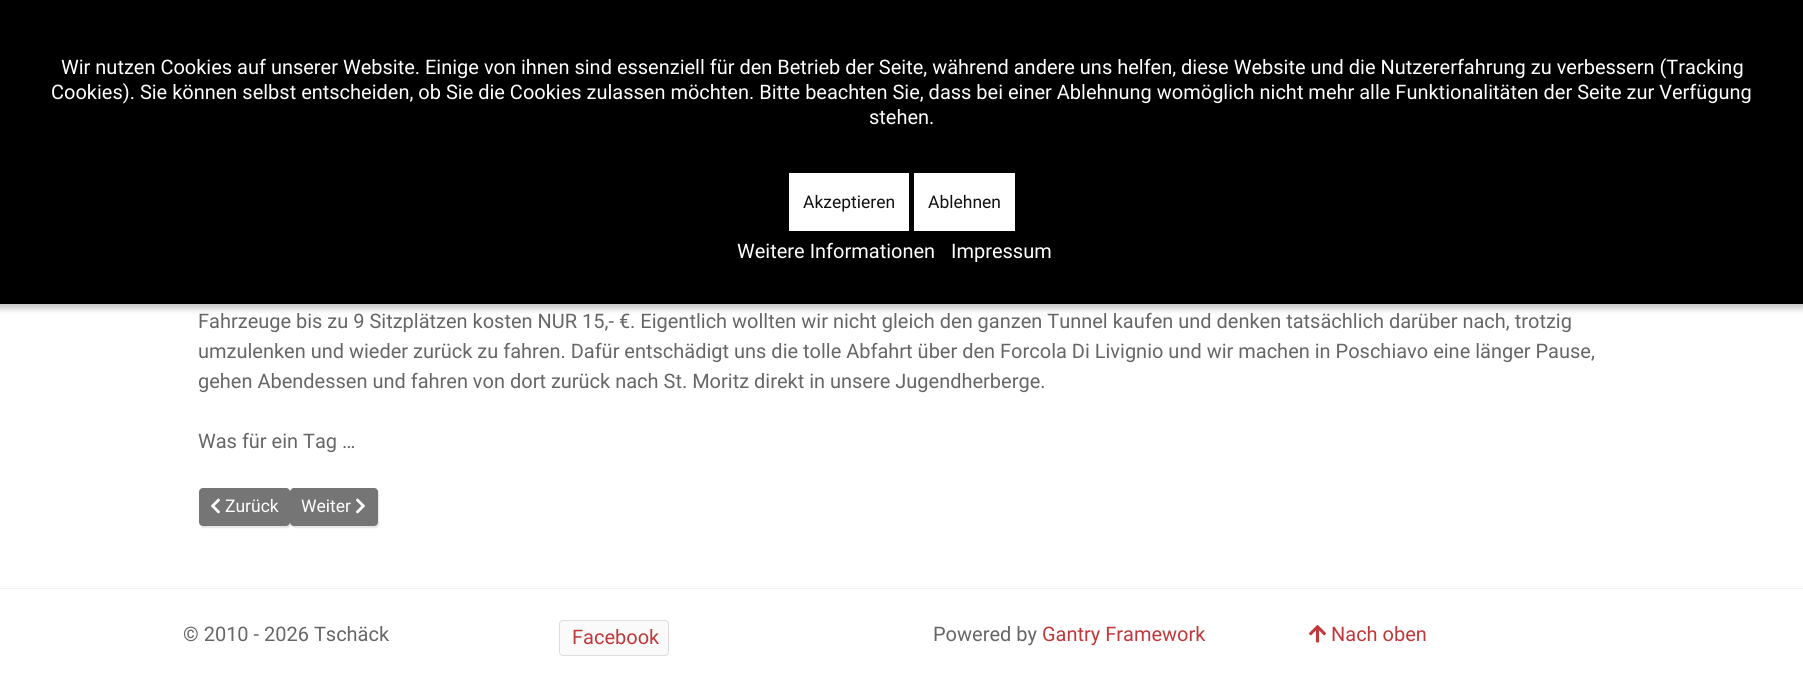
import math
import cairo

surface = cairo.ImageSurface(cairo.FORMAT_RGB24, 1803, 692)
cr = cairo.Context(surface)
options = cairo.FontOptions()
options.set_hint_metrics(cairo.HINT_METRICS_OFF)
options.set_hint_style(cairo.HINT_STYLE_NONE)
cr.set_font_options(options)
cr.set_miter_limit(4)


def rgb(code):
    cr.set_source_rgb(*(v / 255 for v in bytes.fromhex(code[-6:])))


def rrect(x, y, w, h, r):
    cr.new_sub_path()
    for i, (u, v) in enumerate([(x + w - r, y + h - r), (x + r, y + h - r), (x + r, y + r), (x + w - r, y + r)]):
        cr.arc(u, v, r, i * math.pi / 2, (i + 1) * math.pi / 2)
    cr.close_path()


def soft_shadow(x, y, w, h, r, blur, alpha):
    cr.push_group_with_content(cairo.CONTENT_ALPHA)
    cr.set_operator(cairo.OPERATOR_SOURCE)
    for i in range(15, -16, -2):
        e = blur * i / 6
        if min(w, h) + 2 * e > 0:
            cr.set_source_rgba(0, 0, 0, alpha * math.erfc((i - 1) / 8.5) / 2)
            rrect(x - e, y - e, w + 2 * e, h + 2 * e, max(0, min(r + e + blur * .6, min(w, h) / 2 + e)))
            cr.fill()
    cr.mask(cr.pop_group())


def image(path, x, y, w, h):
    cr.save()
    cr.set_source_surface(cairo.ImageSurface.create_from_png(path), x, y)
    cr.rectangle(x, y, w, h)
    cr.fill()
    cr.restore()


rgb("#ffffff")
cr.paint()
rgb("#000000")
soft_shadow(-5, -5, 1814, 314, 0, 3, 0.21)
for x, y, w, h, color in [
    (0, 0, 1803, 304, "#000000"),
    (789, 173, 120, 58, "#ffffff"),
    (914, 173, 101, 58, "#ffffff"),
]:
    rgb(color)
    cr.rectangle(x, y, w, h)
    cr.fill()
rgb("#000000")
soft_shadow(200, 489, 91, 39, 4, 0.5, 0.1)
rgb("#757575")
rrect(199, 488, 91, 38, 4)
cr.fill()
image("img/1.png", 211, 498, 9, 16)
rgb("#000000")
soft_shadow(291, 489, 88, 39, 4, 0.5, 0.1)
rgb("#757575")
rrect(290, 488, 88, 38, 4)
cr.fill()
image("img/2.png", 356, 498, 9, 16)
rgb("#f2f2f2")
cr.rectangle(0, 588, 1803, 1)
cr.fill()
rgb("#fafafa")
rrect(559.5, 620.5, 109, 35, 3.5)
cr.fill_preserve()
rgb("#dddddd")
cr.set_line_width(1)
cr.stroke()
image("img/3.png", 1309, 625, 17, 18)
cr.select_font_face("Roboto")
cr.set_font_size(20)
rgb("#ffffff")
for x, y, s in [
    (61, 74, "Wir nutzen Cookies auf unserer Website. Einige von ihnen sind essenziell für den Betrieb der Seite, während andere uns helfen, diese Website und die Nutzererfahrung zu verbessern (Tracking"),
    (51, 99, "Cookies). Sie können selbst entscheiden, ob Sie die Cookies zulassen möchten. Bitte beachten Sie, dass bei einer Ablehnung womöglich nicht mehr alle Funktionalitäten der Seite zur Verfügung"),
    (869, 124, "stehen."),
]:
    cr.move_to(x, y)
    cr.show_text(s)
cr.set_font_size(17.5)
rgb("#111111")
cr.move_to(803, 208)
cr.show_text("Akzeptieren")
cr.move_to(928, 208)
cr.show_text("Ablehnen")
cr.set_font_size(20)
rgb("#ffffff")
cr.move_to(737, 258)
cr.show_text("Weitere Informationen")
cr.move_to(951, 258)
cr.show_text("Impressum")
rgb("#666666")
for x, y, s in [
    (198, 328, "Fahrzeuge bis zu 9 Sitzplätzen kosten NUR 15,- €. Eigentlich wollten wir nicht gleich den ganzen Tunnel kaufen und denken tatsächlich darüber nach, trotzig"),
    (198, 358, "umzulenken und wieder zurück zu fahren. Dafür entschädigt uns die tolle Abfahrt über den Forcola Di Livignio und wir machen in Poschiavo eine länger Pause,"),
    (198, 388, "gehen Abendessen und fahren von dort zurück nach St. Moritz direkt in unsere Jugendherberge."),
    (198, 448, "Was für ein Tag …"),
]:
    cr.move_to(x, y)
    cr.show_text(s)
cr.set_font_size(17.5)
rgb("#ffffff")
cr.move_to(225, 512)
cr.show_text("Zurück")
cr.move_to(301, 512)
cr.show_text("Weiter")
cr.set_font_size(20)
rgb("#666666")
cr.move_to(183, 641)
cr.show_text("© 2010 - 2026 Tschäck")
rgb("#bf383a")
cr.move_to(572, 644)
cr.show_text("Facebook")
rgb("#666666")
cr.move_to(933, 641)
cr.show_text("Powered by")
rgb("#bf383a")
cr.move_to(1042, 641)
cr.show_text("Gantry Framework")
cr.move_to(1331, 641)
cr.show_text("Nach oben")
surface.write_to_png("page.png")
